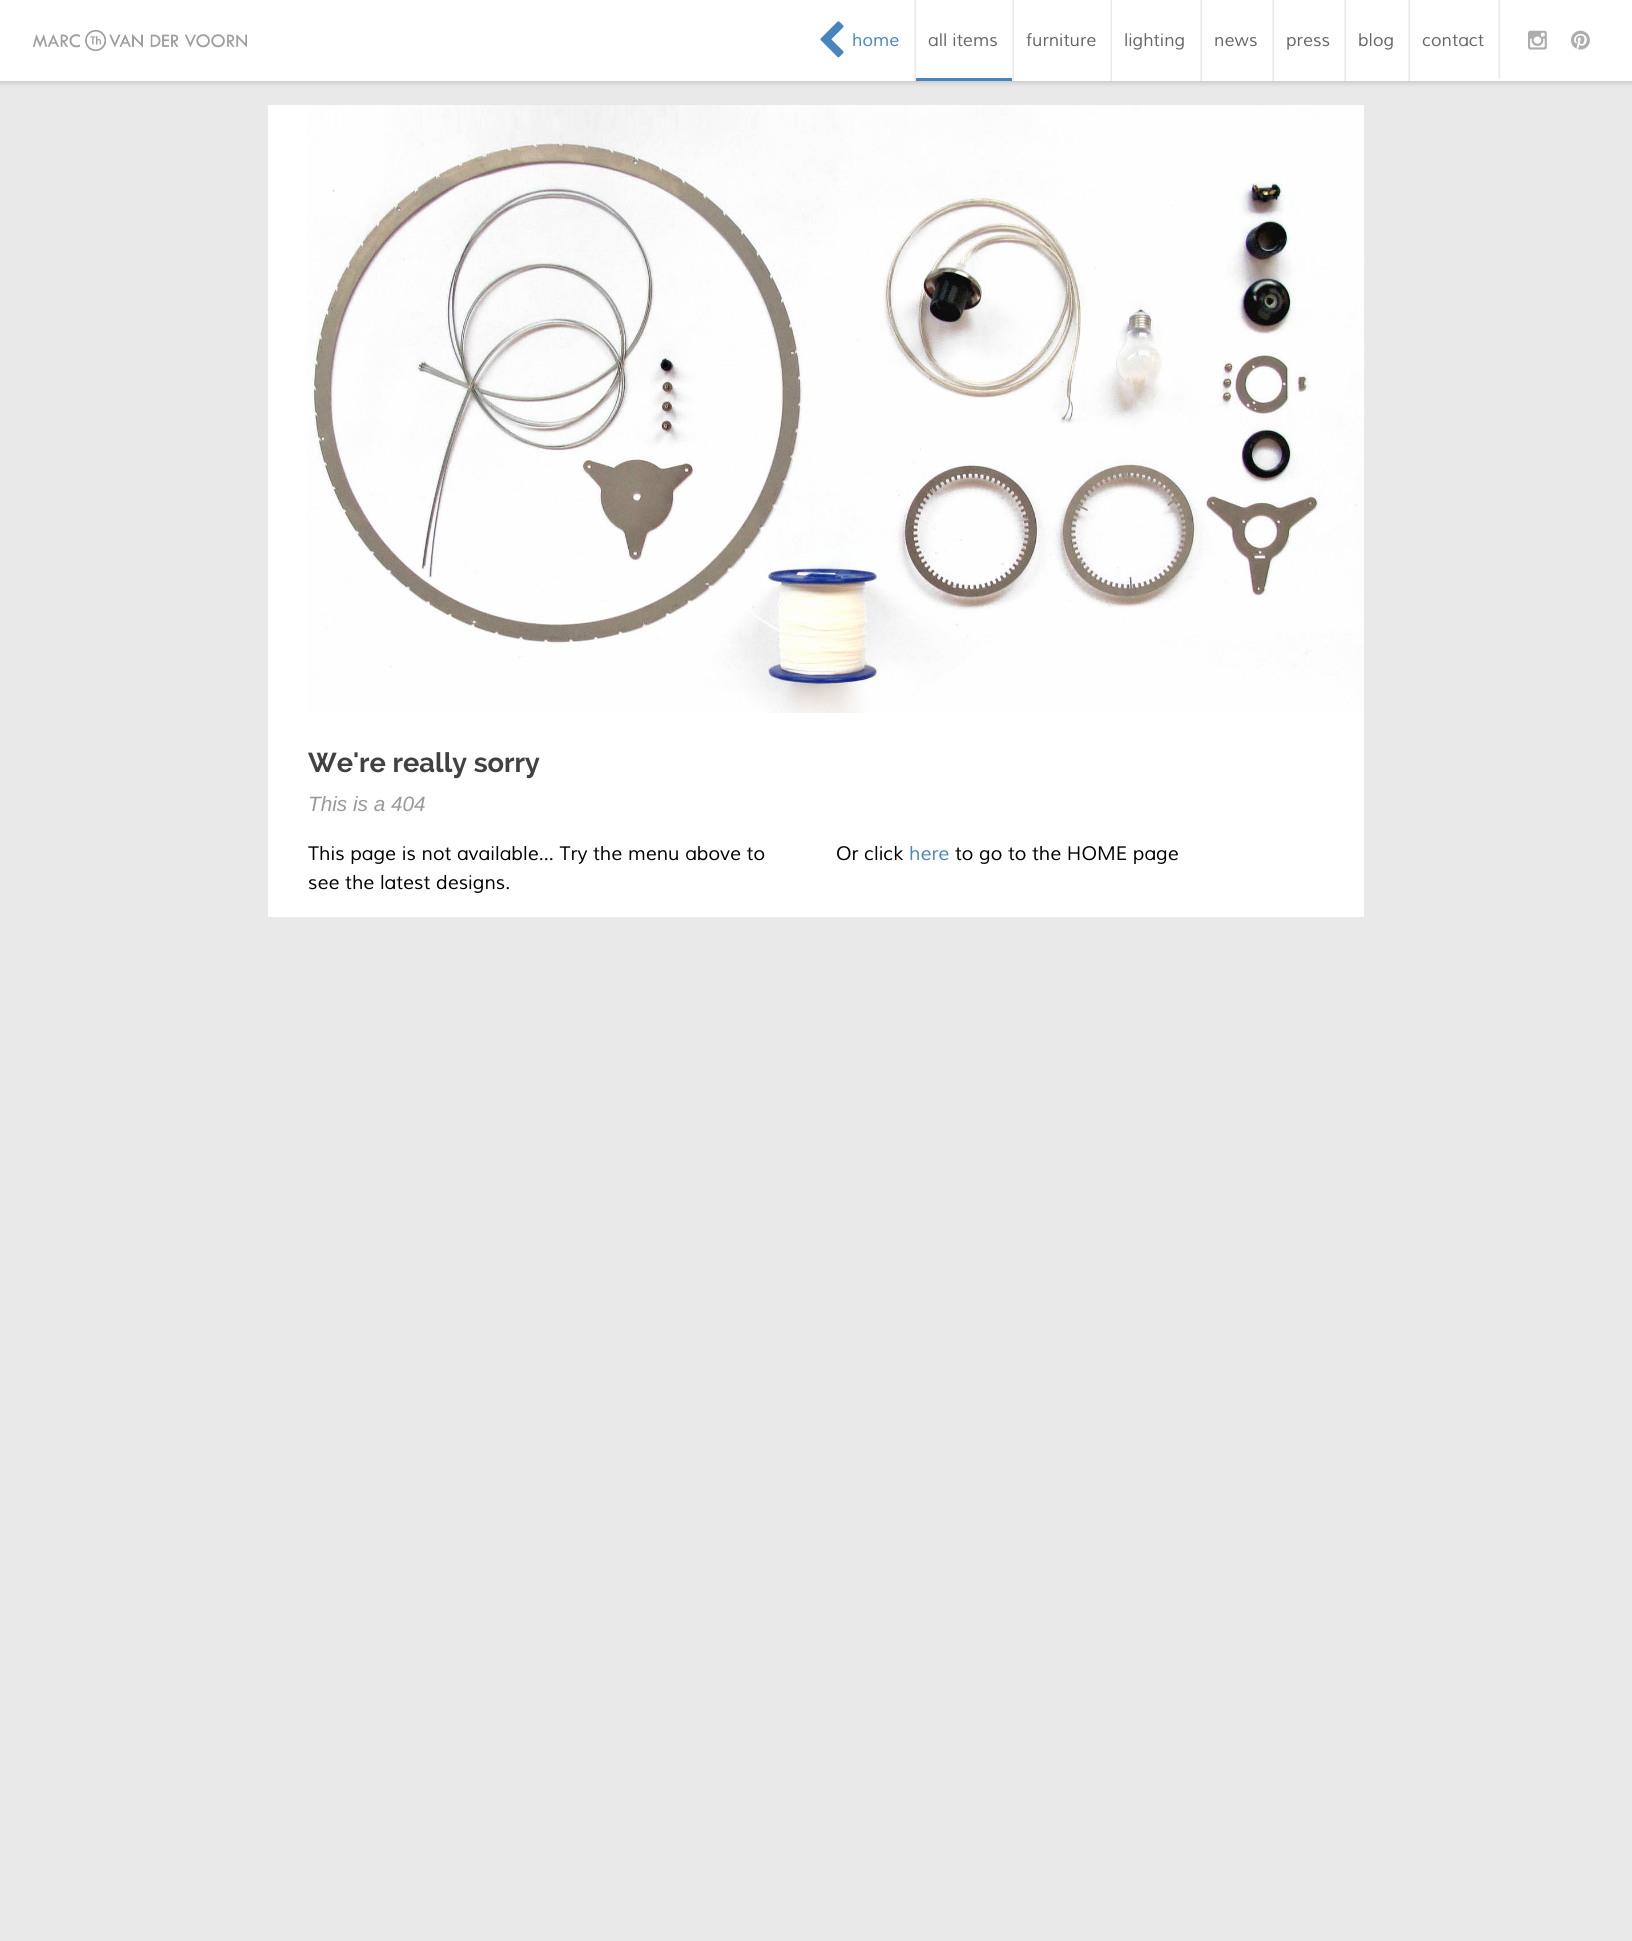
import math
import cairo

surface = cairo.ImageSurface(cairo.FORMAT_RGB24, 1632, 1941)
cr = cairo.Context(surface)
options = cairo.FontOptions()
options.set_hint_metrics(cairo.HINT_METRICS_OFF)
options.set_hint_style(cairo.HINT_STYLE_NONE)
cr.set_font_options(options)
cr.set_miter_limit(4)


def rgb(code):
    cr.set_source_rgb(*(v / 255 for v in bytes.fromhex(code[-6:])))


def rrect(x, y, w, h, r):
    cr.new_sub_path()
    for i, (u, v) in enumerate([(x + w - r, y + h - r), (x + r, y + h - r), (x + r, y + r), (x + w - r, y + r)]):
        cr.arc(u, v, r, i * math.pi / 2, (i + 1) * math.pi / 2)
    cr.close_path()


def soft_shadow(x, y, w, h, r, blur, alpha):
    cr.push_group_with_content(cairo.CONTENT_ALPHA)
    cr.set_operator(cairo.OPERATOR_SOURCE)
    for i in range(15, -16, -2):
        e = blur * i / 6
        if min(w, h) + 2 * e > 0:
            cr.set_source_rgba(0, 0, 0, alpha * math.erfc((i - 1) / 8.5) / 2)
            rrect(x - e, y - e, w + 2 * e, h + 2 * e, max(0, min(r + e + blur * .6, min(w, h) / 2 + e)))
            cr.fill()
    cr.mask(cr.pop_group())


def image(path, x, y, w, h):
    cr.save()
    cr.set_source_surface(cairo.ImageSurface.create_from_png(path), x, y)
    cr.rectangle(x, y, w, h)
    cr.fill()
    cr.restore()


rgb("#e9e9e9")
cr.paint()
rgb("#000000")
soft_shadow(0, 2, 1632, 81, 0, 2.5, 0.15)
rgb("#ffffff")
cr.rectangle(0, 0, 1632, 81)
cr.fill()
image("img/1.png", 33, 30, 214, 21)
image("img/2.png", 820, 21, 24, 37)
for x, y, w, h, color in [
    (914, 78, 98, 3, "#4885bd"),
    (915, 0, 1, 81, "#eaeaea"),
    (914, 0, 1, 81, "#f2f2f2"),
    (1013, 0, 1, 81, "#eaeaea"),
    (1012, 0, 1, 81, "#f2f2f2"),
    (1111, 0, 1, 81, "#eaeaea"),
    (1110, 0, 1, 81, "#f2f2f2"),
    (1201, 0, 1, 81, "#eaeaea"),
    (1200, 0, 1, 81, "#f2f2f2"),
    (1273, 0, 1, 81, "#eaeaea"),
    (1272, 0, 1, 81, "#f2f2f2"),
    (1345, 0, 1, 81, "#eaeaea"),
    (1344, 0, 1, 81, "#f2f2f2"),
    (1409, 0, 1, 81, "#eaeaea"),
    (1408, 0, 1, 81, "#f2f2f2"),
    (1499, 0, 1, 79, "#eaeaea"),
    (1498, 0, 1, 79, "#f2f2f2"),
]:
    rgb(color)
    cr.rectangle(x, y, w, h)
    cr.fill()
image("img/3.png", 1528, 30, 19, 20)
image("img/4.png", 1571, 30, 19, 20)
rgb("#ffffff")
cr.rectangle(268, 105, 1096, 812)
cr.fill()
image("img/5.png", 307, 105, 1057, 608)
cr.select_font_face("Muli", cairo.FONT_SLANT_ITALIC)
cr.set_font_size(17.5)
rgb("#4885bd")
cr.move_to(852, 46)
cr.show_text("home")
rgb("#666666")
for x, y, s in [
    (928, 46, "all items"),
    (1026, 46, "furniture"),
    (1124, 46, "lighting"),
    (1214, 46, "news"),
    (1286, 46, "press"),
    (1358, 46, "blog"),
    (1422, 46, "contact"),
]:
    cr.move_to(x, y)
    cr.show_text(s)
cr.select_font_face("Raleway", cairo.FONT_SLANT_NORMAL, cairo.FONT_WEIGHT_BOLD)
cr.set_font_size(27.25)
rgb("#414141")
cr.move_to(308, 772)
cr.show_text("We're really sorry")
cr.select_font_face("Arimo", cairo.FONT_SLANT_ITALIC)
cr.set_font_size(20.75)
rgb("#999999")
cr.move_to(308, 811)
cr.show_text("This is a 404")
cr.select_font_face("Muli", cairo.FONT_SLANT_ITALIC)
cr.set_font_size(19.2)
rgb("#000000")
for x, y, s in [
    (308, 860, "This page is not available... Try the menu above to"),
    (308, 889, "see the latest designs."),
    (836, 860, "Or click"),
]:
    cr.move_to(x, y)
    cr.show_text(s)
rgb("#4885bd")
cr.move_to(909, 860)
cr.show_text("here")
rgb("#000000")
cr.move_to(955, 860)
cr.show_text("to go to the HOME page")
surface.write_to_png("page.png")
